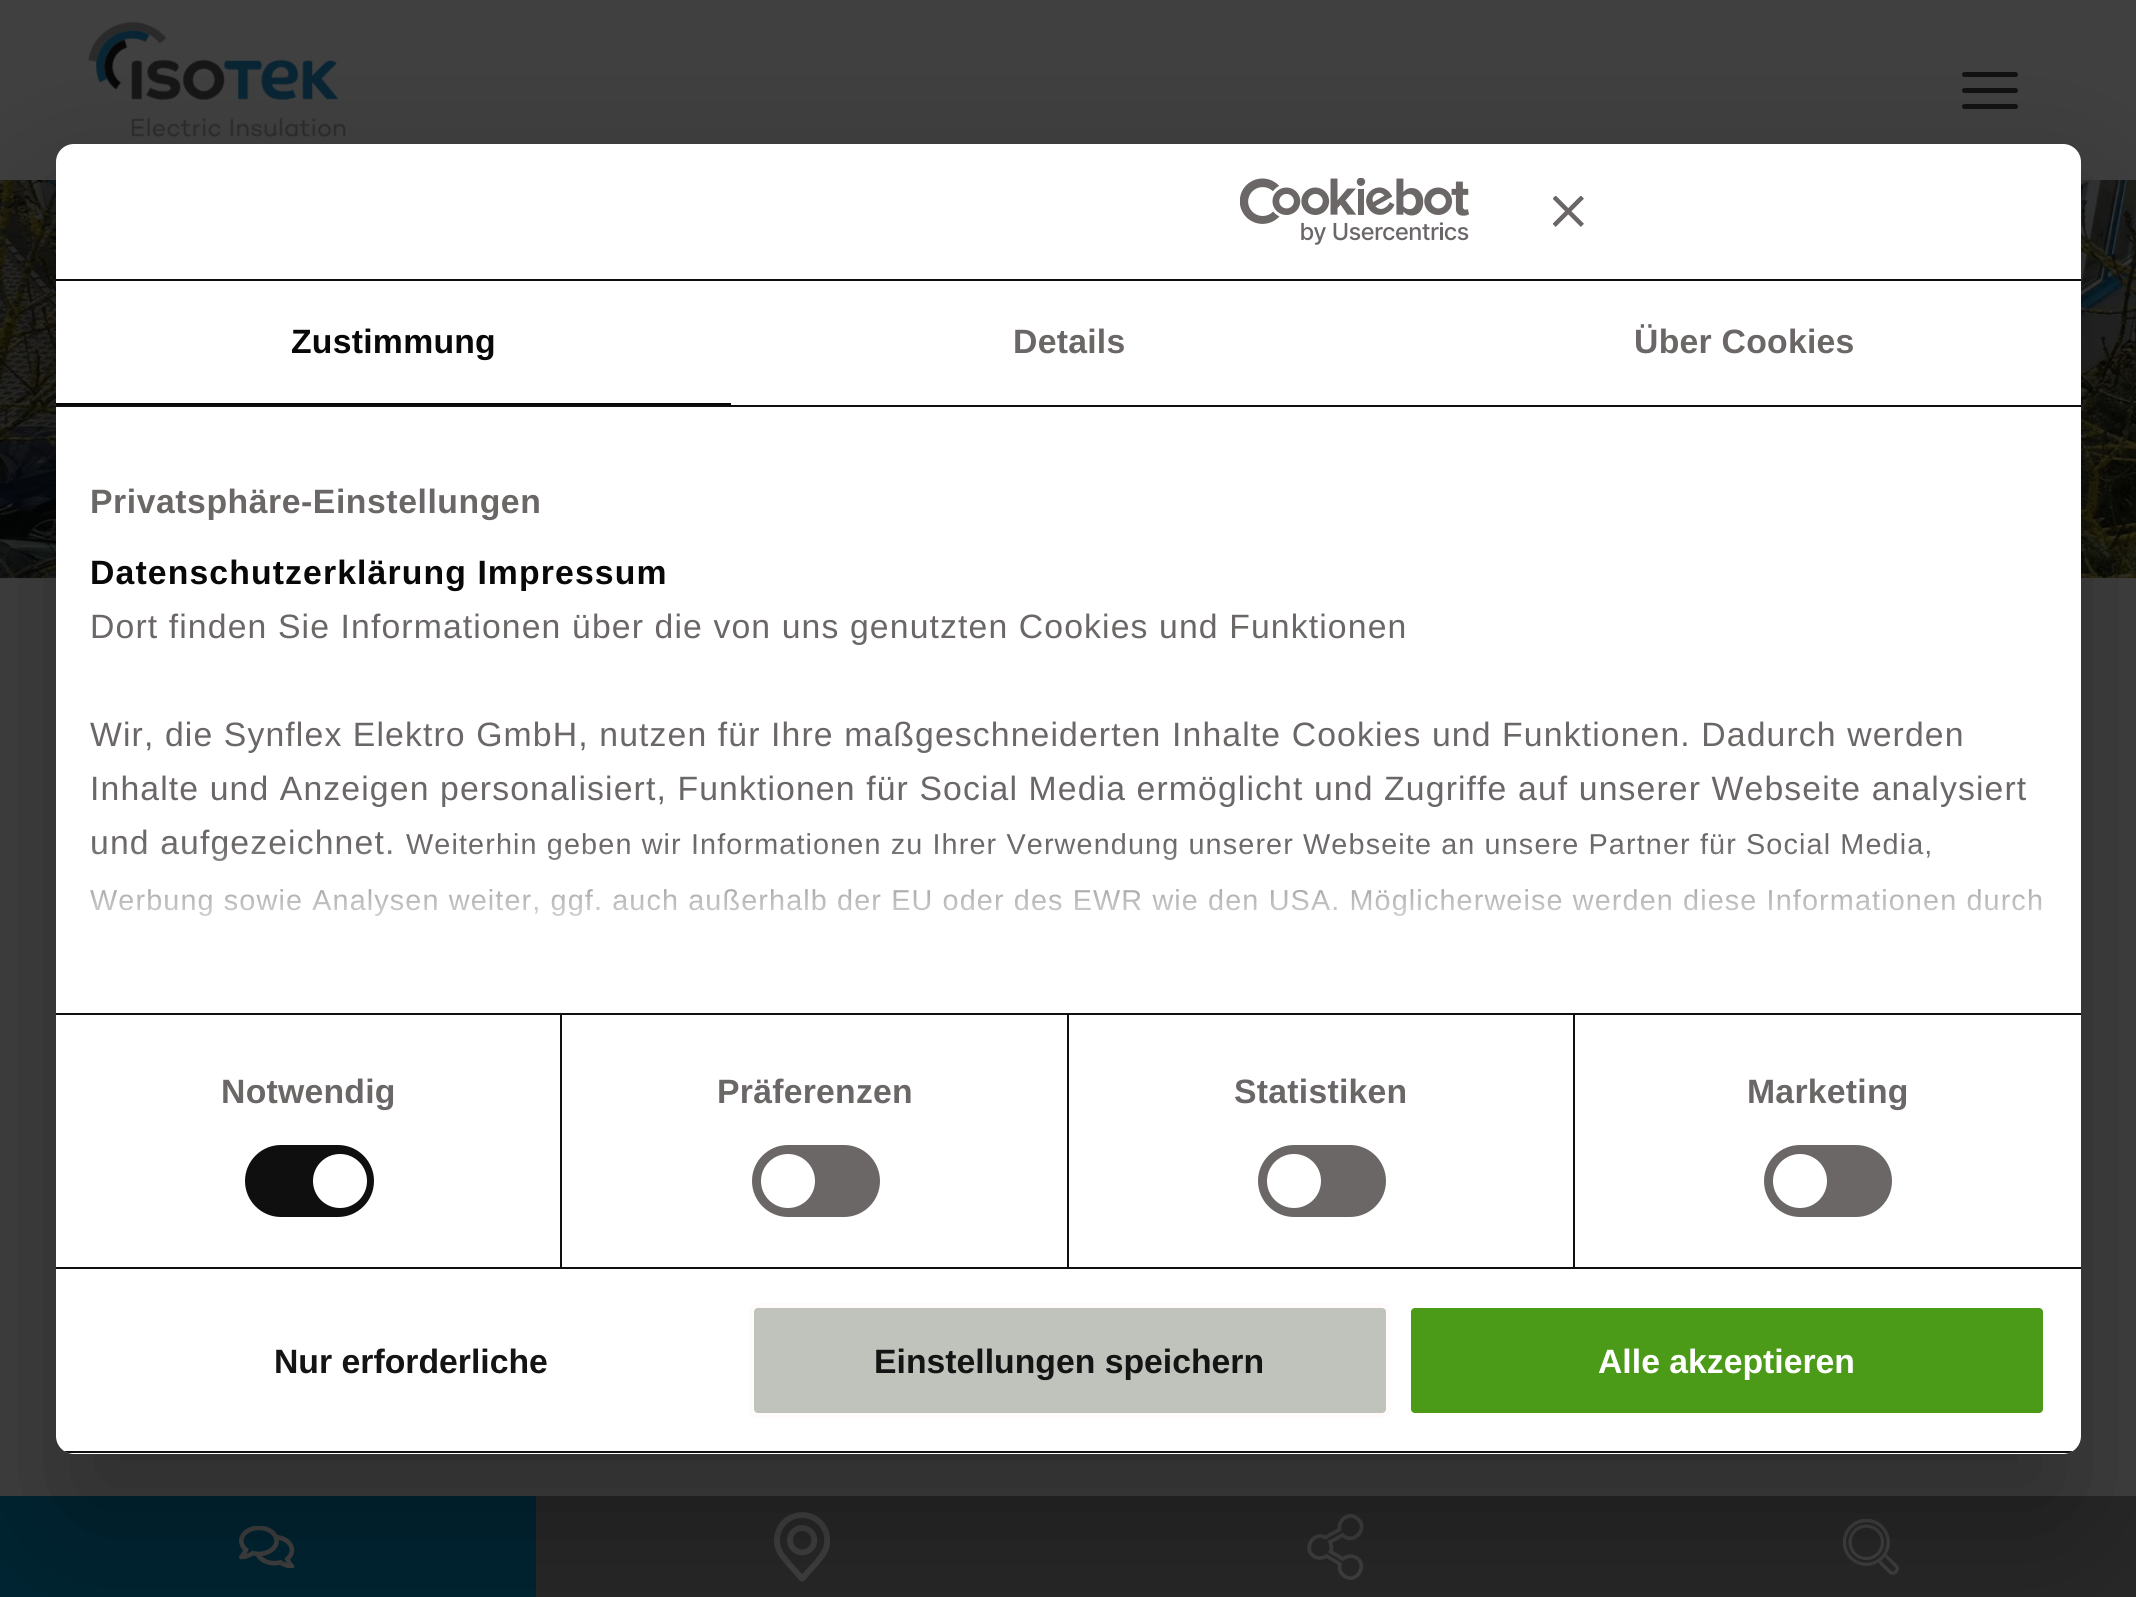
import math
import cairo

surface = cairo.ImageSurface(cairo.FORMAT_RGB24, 2136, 1597)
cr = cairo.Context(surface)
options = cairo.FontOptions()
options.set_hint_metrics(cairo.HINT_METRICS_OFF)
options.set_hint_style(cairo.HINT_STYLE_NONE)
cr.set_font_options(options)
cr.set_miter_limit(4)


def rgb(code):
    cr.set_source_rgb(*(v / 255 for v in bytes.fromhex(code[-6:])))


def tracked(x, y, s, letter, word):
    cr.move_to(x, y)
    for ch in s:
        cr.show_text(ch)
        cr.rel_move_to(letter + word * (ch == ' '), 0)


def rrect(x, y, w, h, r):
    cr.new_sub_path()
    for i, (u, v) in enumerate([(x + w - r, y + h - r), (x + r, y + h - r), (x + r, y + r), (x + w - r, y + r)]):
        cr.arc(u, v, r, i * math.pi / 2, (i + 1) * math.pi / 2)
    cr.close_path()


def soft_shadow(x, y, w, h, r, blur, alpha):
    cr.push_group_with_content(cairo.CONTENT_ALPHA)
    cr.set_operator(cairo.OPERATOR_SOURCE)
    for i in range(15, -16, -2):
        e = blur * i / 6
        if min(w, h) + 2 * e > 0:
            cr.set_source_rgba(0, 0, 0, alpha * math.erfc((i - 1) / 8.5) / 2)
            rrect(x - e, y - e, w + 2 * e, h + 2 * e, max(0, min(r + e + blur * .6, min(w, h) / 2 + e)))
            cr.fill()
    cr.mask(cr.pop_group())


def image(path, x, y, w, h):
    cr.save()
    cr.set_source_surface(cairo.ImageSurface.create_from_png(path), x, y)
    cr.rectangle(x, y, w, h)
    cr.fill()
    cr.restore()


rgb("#404040")
cr.paint()
image("img/1.png", 88, 21, 258, 116)
rgb("#111111")
rrect(1962, 72, 56, 5, 2.5)
cr.fill()
rrect(1962, 88, 56, 5, 2.5)
cr.fill()
rrect(1962, 104, 56, 5, 2.5)
cr.fill()
image("img/2.png", 0, 180, 2136, 399)
rgb("#002532")
cr.rectangle(0, 1496, 536, 101)
cr.fill()
image("img/5.png", 239, 1526, 56, 42)
rgb("#282828")
cr.rectangle(536, 1496, 1600, 101)
cr.fill()
image("img/6.png", 774, 1512, 56, 70)
cr.new_path()
cr.move_to(1339.5, 1567)
cr.line_to(1340, 1564)
cr.line_to(1326.5, 1556)
cr.curve_to(1323.5, 1558, 1320, 1558.5, 1316.5, 1557.5)
cr.curve_to(1301.5, 1552.5, 1312, 1530, 1325.5, 1537.5)
cr.line_to(1339.5, 1529.5)
cr.curve_to(1338.5, 1523.5, 1342.5, 1517.5, 1348.5, 1516)
cr.curve_to(1351, 1515.5, 1354.5, 1516, 1356.5, 1518)
cr.curve_to(1370, 1527, 1354, 1546, 1342.5, 1535)
cr.line_to(1330, 1542)
cr.curve_to(1331.5, 1545, 1332, 1548.5, 1330.5, 1551.5)
cr.line_to(1343, 1559)
cr.curve_to(1346, 1556.5, 1350, 1555.5, 1353.5, 1556.5)
cr.curve_to(1370.5, 1561.5, 1356.5, 1587, 1343, 1575)
cr.curve_to(1341, 1573, 1339.5, 1570, 1339.5, 1567)
cr.close_path()
rgb("#404040")
cr.set_line_width(3.7)
cr.stroke()
image("img/7.png", 1843, 1519, 56, 56)
rgb("#000000")
soft_shadow(56, 216, 2025, 1310, 18, 76.5, 0.3)
rgb("#ffffff")
rrect(56, 144, 2025, 1310, 18)
cr.fill()
rgb("#0f0f0f")
cr.rectangle(56, 279, 2025, 2)
cr.fill()
image("img/3.png", 1240, 178, 229, 67)
image("img/4.png", 1553, 196, 31, 31)
for x, y, w, h, color in [
    (56, 405, 2025, 2, "#0f0f0f"),
    (56, 403, 675, 2, "#080808"),
    (56, 1013, 2025, 2, "#0f0f0f"),
    (56, 1267, 2025, 2, "#0f0f0f"),
    (560, 1015, 2, 252, "#0f0f0f"),
]:
    rgb(color)
    cr.rectangle(x, y, w, h)
    cr.fill()
rrect(245, 1145, 129, 72, 36)
cr.fill()
rgb("#ffffff")
cr.arc(340, 1181, 27, 0, 2 * math.pi)
cr.fill()
rgb("#0f0f0f")
cr.rectangle(1067, 1015, 2, 252)
cr.fill()
rgb("#6b6767")
rrect(752, 1145, 128, 72, 36)
cr.fill()
rgb("#ffffff")
cr.arc(788, 1181, 27, 0, 2 * math.pi)
cr.fill()
rgb("#0f0f0f")
cr.rectangle(1573, 1015, 2, 252)
cr.fill()
rgb("#6b6767")
rrect(1258, 1145, 128, 72, 36)
cr.fill()
rgb("#ffffff")
cr.arc(1294, 1181, 27, 0, 2 * math.pi)
cr.fill()
rgb("#6b6767")
rrect(1764, 1145, 128, 72, 36)
cr.fill()
rgb("#ffffff")
cr.arc(1800, 1181, 27, 0, 2 * math.pi)
cr.fill()
cr.save()
rrect(56, 144, 2025, 1310, 18)
cr.clip()
rgb("#0f0f0f")
cr.rectangle(56, 1451, 2025, 2)
cr.fill()
cr.restore()
rgb("#bfc3bc")
rrect(751.5, 1305.5, 637, 110, 6.5)
cr.fill_preserve()
rgb("#fffbfb")
cr.set_line_width(5)
cr.stroke()
rgb("#4b9b19")
rrect(1408.5, 1305.5, 637, 110, 6.5)
cr.fill_preserve()
rgb("#ffffff")
cr.stroke()
cr.select_font_face("Liberation Sans", cairo.FONT_SLANT_NORMAL, cairo.FONT_WEIGHT_BOLD)
cr.set_font_size(33.75)
rgb("#080808")
tracked(291, 353, "Zustimmung", 0.25, 0)
rgb("#6b6767")
tracked(1013, 353, "Details", 0.25, 0)
tracked(1634, 353, "Über Cookies", 0.25, 0)
tracked(90, 513, "Privatsphäre-Einstellungen", 0.55, 0)
rgb("#080808")
tracked(90, 584, "Datenschutzerklärung Impressum", 1.12, 0)
cr.select_font_face("Liberation Sans")
rgb("#6b6767")
for x, y, s in [
    (90, 638, "Dort finden Sie Informationen über die von uns genutzten Cookies und Funktionen"),
    (90, 746, "Wir, die Synflex Elektro GmbH, nutzen für Ihre maßgeschneiderten Inhalte Cookies und Funktionen. Dadurch werden"),
    (90, 800, "Inhalte und Anzeigen personalisiert, Funktionen für Social Media ermöglicht und Zugriffe auf unserer Webseite analysiert"),
    (90, 854, "und aufgezeichnet."),
]:
    tracked(x, y, s, 1.12, 0)
cr.set_font_size(28.8)
tracked(406, 854, "Weiterhin geben wir Informationen zu Ihrer Verwendung unserer Webseite an unsere Partner für Social Media,", 1.12, 0)
tracked(90, 910, "Werbung sowie Analysen weiter, ggf. auch außerhalb der EU oder des EWR wie den USA. Möglicherweise werden diese Informationen durch", 1.12, 0)
gradient = cairo.LinearGradient(1054, 1012, 1054, 843)
gradient.add_color_stop_rgba(0, 1, 1, 1, 1)
gradient.add_color_stop_rgba(0.5, 1, 1, 1, 0.8)
gradient.add_color_stop_rgba(1, 1, 1, 1, 0)
cr.set_source(gradient)
cr.rectangle(90, 845, 1952, 71)
cr.fill()
cr.select_font_face("Liberation Sans", cairo.FONT_SLANT_NORMAL, cairo.FONT_WEIGHT_BOLD)
cr.set_font_size(33.75)
rgb("#6b6767")
for x, y, s in [
    (221, 1103, "Notwendig"),
    (717, 1103, "Präferenzen"),
    (1234, 1103, "Statistiken"),
    (1747, 1103, "Marketing"),
]:
    tracked(x, y, s, 0.25, 0)
rgb("#141414")
cr.move_to(274, 1373)
cr.show_text("Nur erforderliche")
cr.move_to(874, 1373)
cr.show_text("Einstellungen speichern")
rgb("#ffffff")
cr.move_to(1598, 1373)
cr.show_text("Alle akzeptieren")
surface.write_to_png("page.png")
